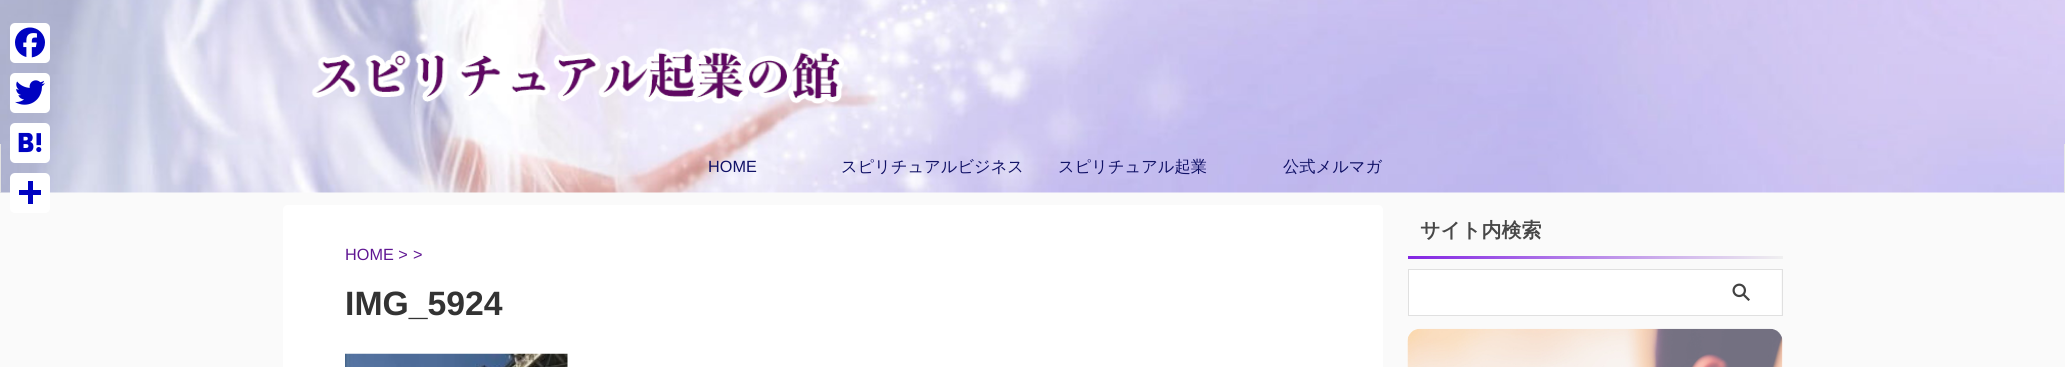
import math
import cairo

surface = cairo.ImageSurface(cairo.FORMAT_RGB24, 2065, 367)
cr = cairo.Context(surface)
options = cairo.FontOptions()
options.set_hint_metrics(cairo.HINT_METRICS_OFF)
options.set_hint_style(cairo.HINT_STYLE_NONE)
cr.set_font_options(options)
cr.set_miter_limit(4)


def rgb(code):
    cr.set_source_rgb(*(v / 255 for v in bytes.fromhex(code[-6:])))


def rrect(x, y, w, h, r):
    cr.new_sub_path()
    for i, (u, v) in enumerate([(x + w - r, y + h - r), (x + r, y + h - r), (x + r, y + r), (x + w - r, y + r)]):
        cr.arc(u, v, r, i * math.pi / 2, (i + 1) * math.pi / 2)
    cr.close_path()


def image(path, x, y, w, h):
    cr.save()
    cr.set_source_surface(cairo.ImageSurface.create_from_png(path), x, y)
    cr.rectangle(x, y, w, h)
    cr.fill()
    cr.restore()


rgb("#fafafa")
cr.paint()
image("img/4.png", 0, 0, 2065, 193)
rgb("#ffffff")
rrect(10, 23, 40, 40, 5)
cr.fill()
image("img/1.png", 15, 27, 30, 31)
rrect(10, 73, 40, 40, 5)
cr.fill()
image("img/2.png", 15, 80, 30, 25)
rrect(10, 123, 40, 40, 5)
cr.fill()
image("img/3.png", 18, 132, 24, 21)
rrect(10, 173, 40, 40, 5)
cr.fill()
rgb("#0003c1")
cr.rectangle(28, 181, 5, 23)
cr.fill()
cr.rectangle(19, 190, 22, 5)
cr.fill()
image("img/5.png", 311, 47, 533, 57)
rgb("#e3e3e3")
cr.rectangle(2064, 144, 1, 49)
cr.fill()
cr.rectangle(0, 144, 1, 49)
cr.fill()
gradient = cairo.LinearGradient(1783, 258, 1408, 258)
gradient.add_color_stop_rgba(0, 0.941, 0.941, 0.941, 1)
gradient.add_color_stop_rgba(1, 0.51, 0.141, 0.89, 1)
cr.set_source(gradient)
cr.rectangle(1408, 256, 375, 3)
cr.fill()
cr.rectangle(1408.5, 269.5, 374, 46)
rgb("#e0e0e0")
cr.set_line_width(1)
cr.stroke()
rgb("#ffffff")
cr.rectangle(1409, 270, 372, 45)
cr.fill()
image("img/6.png", 1732, 283, 18, 18)
rrect(1408, 329, 375, 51, 13)
cr.fill()
image("img/7.png", 1407, 328, 376, 39)
rrect(283, 205, 1100, 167, 5)
cr.fill()
image("img/8.png", 345, 353, 223, 14)
cr.select_font_face("Liberation Sans")
cr.set_font_size(16.25)
rgb("#101166")
cr.move_to(708, 172)
cr.show_text("HOME")
cr.select_font_face("WenQuanYi Zen Hei Medium")
for x, y, s in [
    (841, 172, "スピリチュアルビジネス"),
    (1058, 172, "スピリチュアル起業"),
    (1283, 172, "公式メルマガ"),
]:
    cr.move_to(x, y)
    cr.show_text(s)
cr.select_font_face("WenQuanYi Zen Hei", cairo.FONT_SLANT_NORMAL, cairo.FONT_WEIGHT_BOLD)
cr.set_font_size(20)
rgb("#474747")
cr.move_to(1420, 237)
cr.show_text("サイト内検索")
cr.select_font_face("Liberation Sans")
cr.set_font_size(16.25)
rgb("#601793")
cr.move_to(345, 260)
cr.show_text("HOME >")
cr.move_to(413, 260)
cr.show_text(">")
cr.select_font_face("Liberation Sans", cairo.FONT_SLANT_NORMAL, cairo.FONT_WEIGHT_BOLD)
cr.set_font_size(33.75)
rgb("#333333")
cr.move_to(345, 315)
cr.show_text("IMG_5924")
surface.write_to_png("page.png")
